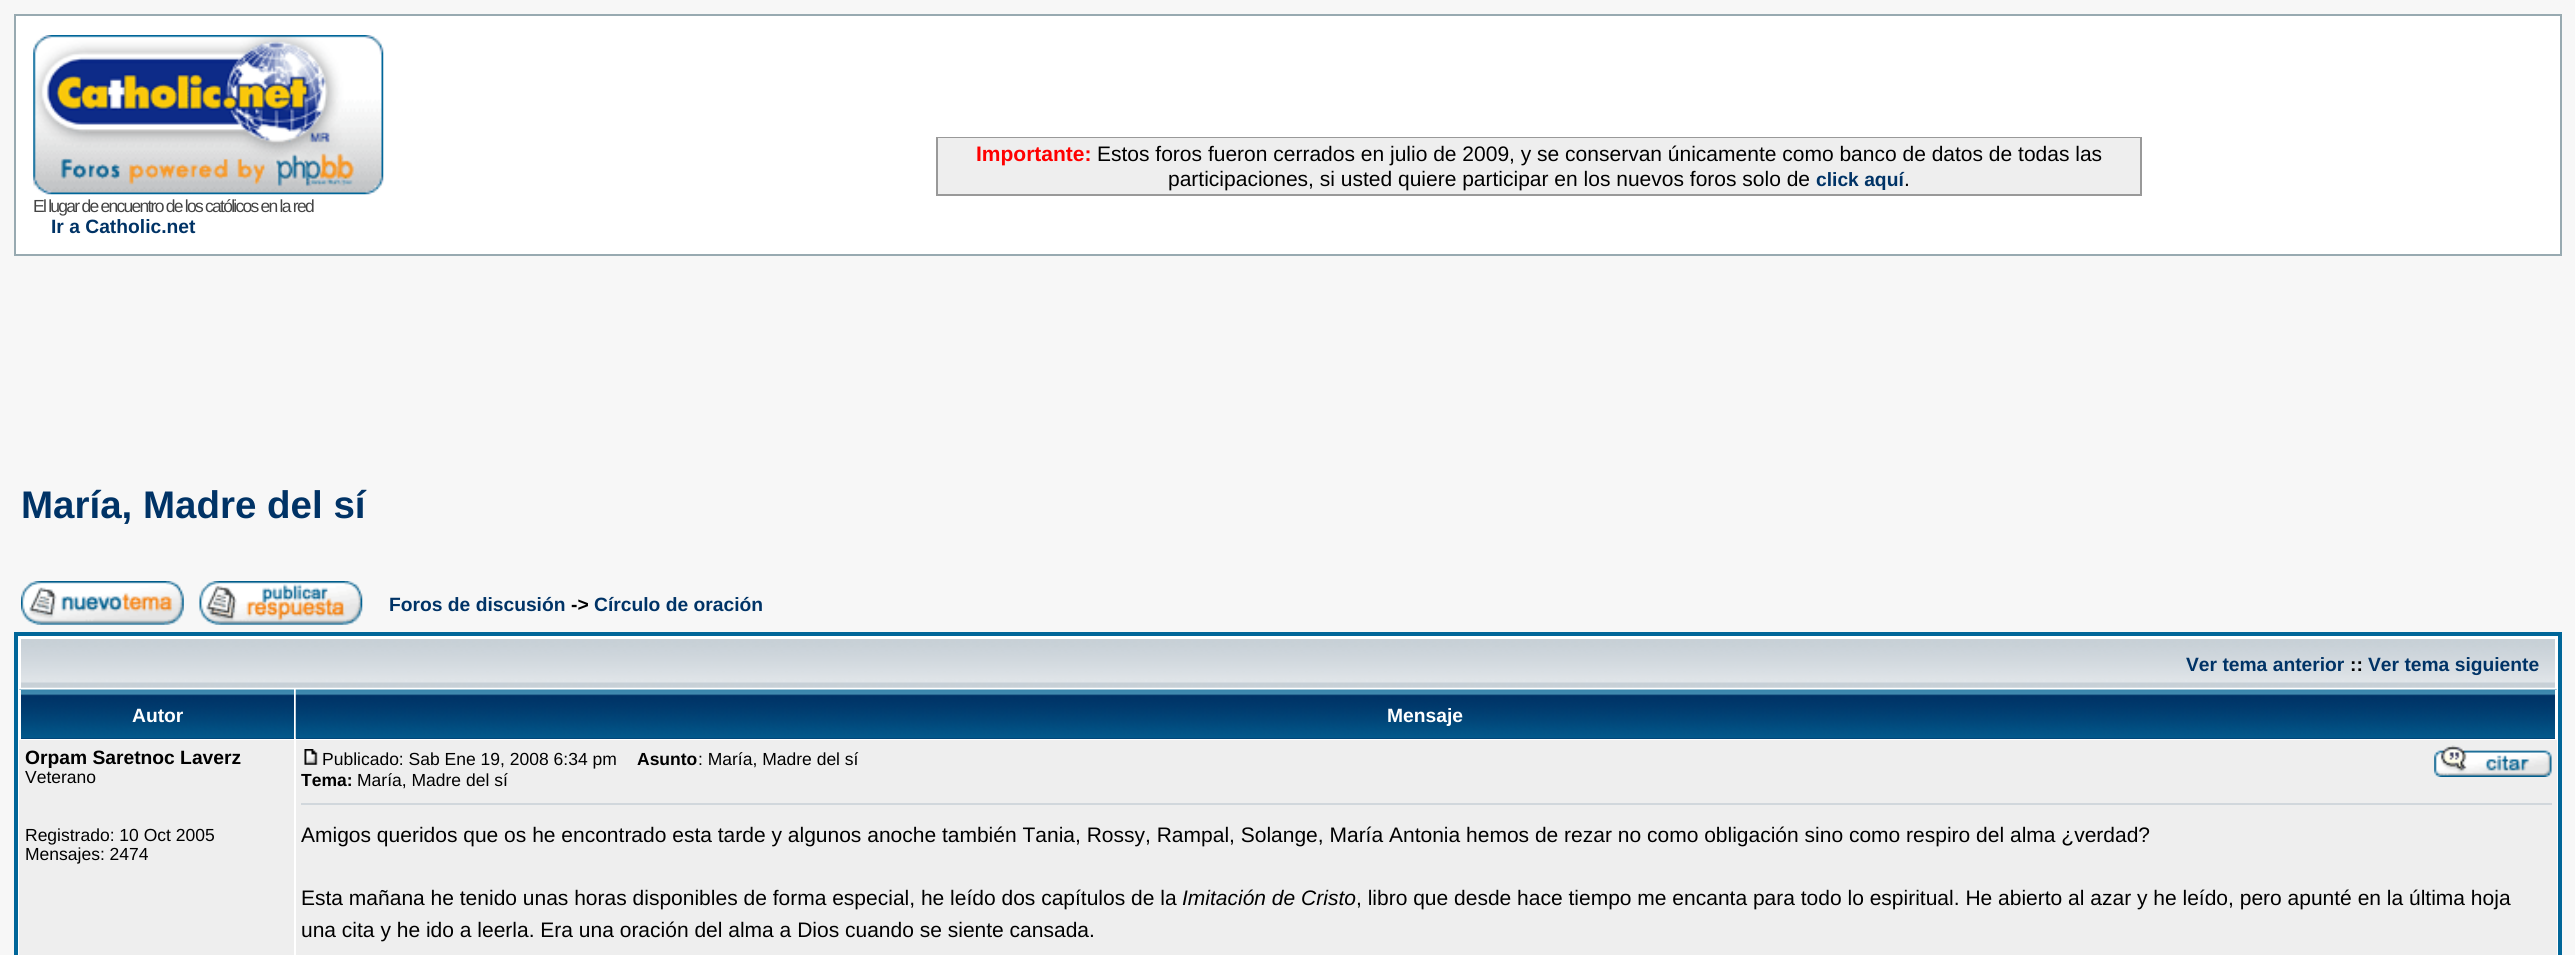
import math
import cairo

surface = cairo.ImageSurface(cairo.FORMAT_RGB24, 2575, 955)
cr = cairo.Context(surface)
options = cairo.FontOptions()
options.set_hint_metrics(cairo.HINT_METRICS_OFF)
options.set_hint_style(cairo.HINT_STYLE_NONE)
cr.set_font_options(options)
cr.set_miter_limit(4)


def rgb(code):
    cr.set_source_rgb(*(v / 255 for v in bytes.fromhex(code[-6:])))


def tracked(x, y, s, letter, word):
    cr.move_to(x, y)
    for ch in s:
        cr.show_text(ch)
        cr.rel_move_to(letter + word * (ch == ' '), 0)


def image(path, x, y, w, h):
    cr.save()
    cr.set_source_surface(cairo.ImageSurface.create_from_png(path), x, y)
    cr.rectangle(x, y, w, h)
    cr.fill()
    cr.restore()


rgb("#f7f7f7")
cr.paint()
rgb("#ffffff")
cr.rectangle(15, 15, 2546, 240)
cr.fill_preserve()
rgb("#98aab1")
cr.stroke()
cr.rectangle(937, 138, 1204, 57)
rgb("#999999")
cr.stroke()
rgb("#eeeeee")
cr.rectangle(938, 138, 1202, 56)
cr.fill()
image("img/1.png", 33, 35, 351, 160)
image("img/2.png", 21, 581, 163, 44)
image("img/3.png", 199, 581, 164, 44)
rgb("#ffffff")
cr.rectangle(16, 634, 2544, 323)
cr.fill_preserve()
rgb("#006699")
cr.set_line_width(4)
cr.stroke()
image("img/4.png", 21, 639, 2534, 49)
rgb("#003366")
cr.rectangle(21, 738, 273, 1)
cr.fill()
image("img/5.png", 19, 689, 275, 50)
rgb("#ffffff")
cr.rectangle(19, 690, 2, 49)
cr.fill()
rgb("#003366")
cr.rectangle(296, 738, 2259, 1)
cr.fill()
image("img/6.png", 295, 689, 2262, 50)
for x, y, w, h, color in [
    (2555, 690, 2, 49, "#ffffff"),
    (19, 740, 275, 215, "#eeeeee"),
    (296, 740, 2261, 215, "#eeeeee"),
]:
    rgb(color)
    cr.rectangle(x, y, w, h)
    cr.fill()
image("img/7.png", 304, 749, 14, 16)
image("img/8.png", 2434, 745, 118, 32)
rgb("#d1d7dc")
cr.rectangle(301, 803, 2251, 2)
cr.fill()
cr.select_font_face("Liberation Sans", cairo.FONT_SLANT_NORMAL, cairo.FONT_WEIGHT_BOLD)
cr.set_font_size(21)
rgb("#ff0000")
cr.move_to(976, 161)
cr.show_text("Importante:")
cr.select_font_face("Liberation Sans")
rgb("#000000")
cr.move_to(1097, 161)
cr.show_text("Estos foros fueron cerrados en julio de 2009, y se conservan únicamente como banco de datos de todas las")
cr.move_to(1168, 186)
cr.show_text("participaciones, si usted quiere participar en los nuevos foros solo de")
cr.select_font_face("Liberation Sans", cairo.FONT_SLANT_NORMAL, cairo.FONT_WEIGHT_BOLD)
cr.set_font_size(19.25)
rgb("#003366")
cr.move_to(1816, 186)
cr.show_text("click aquí")
cr.select_font_face("Liberation Sans")
cr.set_font_size(21)
rgb("#000000")
cr.move_to(1904, 186)
cr.show_text(".")
cr.set_font_size(17.5)
rgb("#444444")
tracked(33, 212, "El lugar de encuentro de los católicos en la red", -1.75, 0)
cr.select_font_face("Liberation Sans", cairo.FONT_SLANT_NORMAL, cairo.FONT_WEIGHT_BOLD)
cr.set_font_size(19.25)
rgb("#003366")
cr.move_to(51, 233)
cr.show_text("Ir a Catholic.net")
cr.set_font_size(38.5)
cr.move_to(21, 518)
cr.show_text("María, Madre del sí")
cr.set_font_size(19.25)
cr.move_to(389, 611)
cr.show_text("Foros de discusión")
rgb("#000000")
cr.move_to(571, 611)
cr.show_text("->")
rgb("#003366")
cr.move_to(594, 611)
cr.show_text("Círculo de oración")
cr.move_to(2186, 671)
cr.show_text("Ver tema anterior")
rgb("#000000")
cr.move_to(2350, 671)
cr.show_text("::")
rgb("#003366")
cr.move_to(2368, 671)
cr.show_text("Ver tema siguiente")
rgb("#ffffff")
cr.move_to(132, 722)
cr.show_text("Autor")
cr.move_to(1387, 722)
cr.show_text("Mensaje")
rgb("#000000")
cr.move_to(25, 764)
cr.show_text("Orpam Saretnoc Laverz")
cr.select_font_face("Liberation Sans")
cr.set_font_size(17.5)
for x, y, s in [
    (25, 783, "Veterano"),
    (25, 841, "Registrado: 10 Oct 2005"),
    (25, 860, "Mensajes: 2474"),
    (322, 765, "Publicado: Sab Ene 19, 2008 6:34 pm"),
]:
    cr.move_to(x, y)
    cr.show_text(s)
cr.select_font_face("Liberation Sans", cairo.FONT_SLANT_NORMAL, cairo.FONT_WEIGHT_BOLD)
cr.move_to(637, 765)
cr.show_text("Asunto")
cr.select_font_face("Liberation Sans")
cr.move_to(698, 765)
cr.show_text(": María, Madre del sí")
cr.select_font_face("Liberation Sans", cairo.FONT_SLANT_NORMAL, cairo.FONT_WEIGHT_BOLD)
cr.move_to(301, 786)
cr.show_text("Tema:")
cr.select_font_face("Liberation Sans")
cr.move_to(357, 786)
cr.show_text("María, Madre del sí")
cr.set_font_size(21)
cr.move_to(301, 842)
cr.show_text("Amigos queridos que os he encontrado esta tarde y algunos anoche también Tania, Rossy, Rampal, Solange, María Antonia hemos de rezar no como obligación sino como respiro del alma ¿verdad?")
cr.move_to(301, 905)
cr.show_text("Esta mañana he tenido unas horas disponibles de forma especial, he leído dos capítulos de la")
cr.select_font_face("Liberation Sans", cairo.FONT_SLANT_ITALIC)
cr.move_to(1182, 905)
cr.show_text("Imitación de Cristo")
cr.select_font_face("Liberation Sans")
cr.move_to(1356, 905)
cr.show_text(", libro que desde hace tiempo me encanta para todo lo espiritual. He abierto al azar y he leído, pero apunté en la última hoja")
cr.move_to(301, 937)
cr.show_text("una cita y he ido a leerla. Era una oración del alma a Dios cuando se siente cansada.")
surface.write_to_png("page.png")
